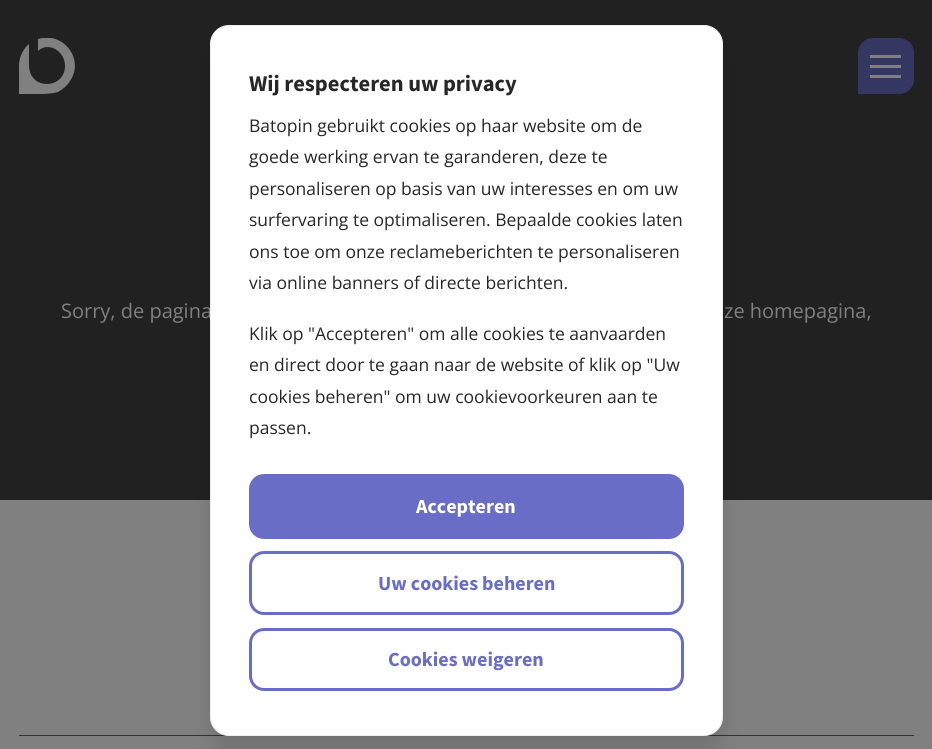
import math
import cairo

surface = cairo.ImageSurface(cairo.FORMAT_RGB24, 932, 749)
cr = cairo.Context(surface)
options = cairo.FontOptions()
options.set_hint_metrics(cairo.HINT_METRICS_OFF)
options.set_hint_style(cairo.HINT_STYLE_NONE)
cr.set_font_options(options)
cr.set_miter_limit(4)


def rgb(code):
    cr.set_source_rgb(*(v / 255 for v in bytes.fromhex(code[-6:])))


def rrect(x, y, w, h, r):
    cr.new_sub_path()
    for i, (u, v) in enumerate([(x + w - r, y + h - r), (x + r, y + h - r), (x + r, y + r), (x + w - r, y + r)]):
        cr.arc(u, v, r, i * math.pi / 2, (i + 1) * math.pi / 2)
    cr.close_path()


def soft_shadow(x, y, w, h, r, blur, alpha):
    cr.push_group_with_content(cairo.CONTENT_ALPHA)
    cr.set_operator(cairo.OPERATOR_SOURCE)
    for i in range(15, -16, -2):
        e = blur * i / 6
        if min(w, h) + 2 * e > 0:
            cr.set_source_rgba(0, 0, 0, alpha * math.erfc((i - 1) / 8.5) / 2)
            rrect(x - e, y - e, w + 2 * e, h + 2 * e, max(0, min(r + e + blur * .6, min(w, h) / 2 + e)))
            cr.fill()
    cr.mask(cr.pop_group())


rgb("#808080")
cr.paint()
rgb("#212121")
cr.rectangle(0, 0, 932, 500)
cr.fill()
cr.save()
cr.rectangle(19, 38, 56, 56)
cr.clip()
rgb("#808080")
cr.new_path()
cr.move_to(38, 39)
cr.line_to(38, 51)
cr.curve_to(44, 45, 54, 46, 60, 53)
cr.curve_to(63, 56, 65, 61, 65, 66)
cr.curve_to(65, 89, 30, 91, 29, 66)
cr.line_to(29, 44)
cr.curve_to(23, 49, 19, 57, 19, 66)
cr.line_to(19, 94)
cr.curve_to(29, 94, 49, 95, 58, 92)
cr.curve_to(63, 89, 67, 86, 70, 81)
cr.curve_to(85, 59, 63, 31, 38, 39)
cr.close_path()
cr.fill()
cr.restore()
rgb("#353763")
cr.new_path()
cr.move_to(873, 38)
cr.line_to(899, 38)
cr.curve_to(907.5, 38, 914, 44.5, 914, 53)
cr.line_to(914, 79)
cr.curve_to(914, 87.5, 907.5, 94, 899, 94)
cr.line_to(858, 94)
cr.line_to(858, 53)
cr.curve_to(858, 44.5, 864.5, 38, 873, 38)
cr.close_path()
cr.fill()
for x, y, w, h, color in [
    (870, 65, 31, 3, "#808080"),
    (870, 55, 31, 3, "#808080"),
    (870, 75, 31, 3, "#808080"),
    (19, 735, 895, 1, "#333333"),
]:
    rgb(color)
    cr.rectangle(x, y, w, h)
    cr.fill()
rgb("#000000")
soft_shadow(210, 44, 513, 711, 19, 9.5, 0.1)
cr.select_font_face("Open Sans")
cr.set_font_size(20)
rgb("#808080")
cr.move_to(61, 318)
cr.show_text("Sorry, de pagina")
rgb("#ffffff")
rrect(210.5, 25.5, 512, 710, 18.5)
cr.fill_preserve()
rgb("#eeeeee")
cr.set_line_width(1)
cr.stroke()
rrect(250.5, 629.5, 432, 60, 13.5)
rgb("#696dc6")
cr.set_line_width(3)
cr.stroke()
cr.select_font_face("Source Sans Pro", cairo.FONT_SLANT_NORMAL, cairo.FONT_WEIGHT_BOLD)
cr.move_to(388, 666)
cr.show_text("Cookies weigeren")
rrect(250.5, 552.5, 432, 61, 13.5)
cr.stroke()
cr.move_to(378, 590)
cr.show_text("Uw cookies beheren")
rrect(250.5, 475.5, 432, 62, 13.5)
cr.fill_preserve()
cr.stroke()
rgb("#ffffff")
cr.move_to(416, 513)
cr.show_text("Accepteren")
cr.select_font_face("Open Sans")
cr.set_font_size(17.5)
rgb("#282727")
for x, y, s in [
    (249, 434, "passen."),
    (249, 403, "cookies beheren\" om uw cookievoorkeuren aan te"),
    (249, 371, "en direct door te gaan naar de website of klik op \"Uw"),
    (249, 340, "Klik op \"Accepteren\" om alle cookies te aanvaarden"),
    (249, 289, "via online banners of directe berichten."),
    (249, 258, "ons toe om onze reclameberichten te personaliseren"),
    (249, 226, "surfervaring te optimaliseren. Bepaalde cookies laten"),
    (249, 195, "personaliseren op basis van uw interesses en om uw"),
    (249, 163, "goede werking ervan te garanderen, deze te"),
    (249, 132, "Batopin gebruikt cookies op haar website om de"),
]:
    cr.move_to(x, y)
    cr.show_text(s)
cr.select_font_face("Source Sans Pro", cairo.FONT_SLANT_NORMAL, cairo.FONT_WEIGHT_BOLD)
cr.set_font_size(22.5)
cr.move_to(249, 91)
cr.show_text("Wij respecteren uw privacy")
cr.select_font_face("Open Sans")
cr.set_font_size(20)
rgb("#808080")
cr.move_to(724, 318)
cr.show_text("ze homepagina,")
surface.write_to_png("page.png")
